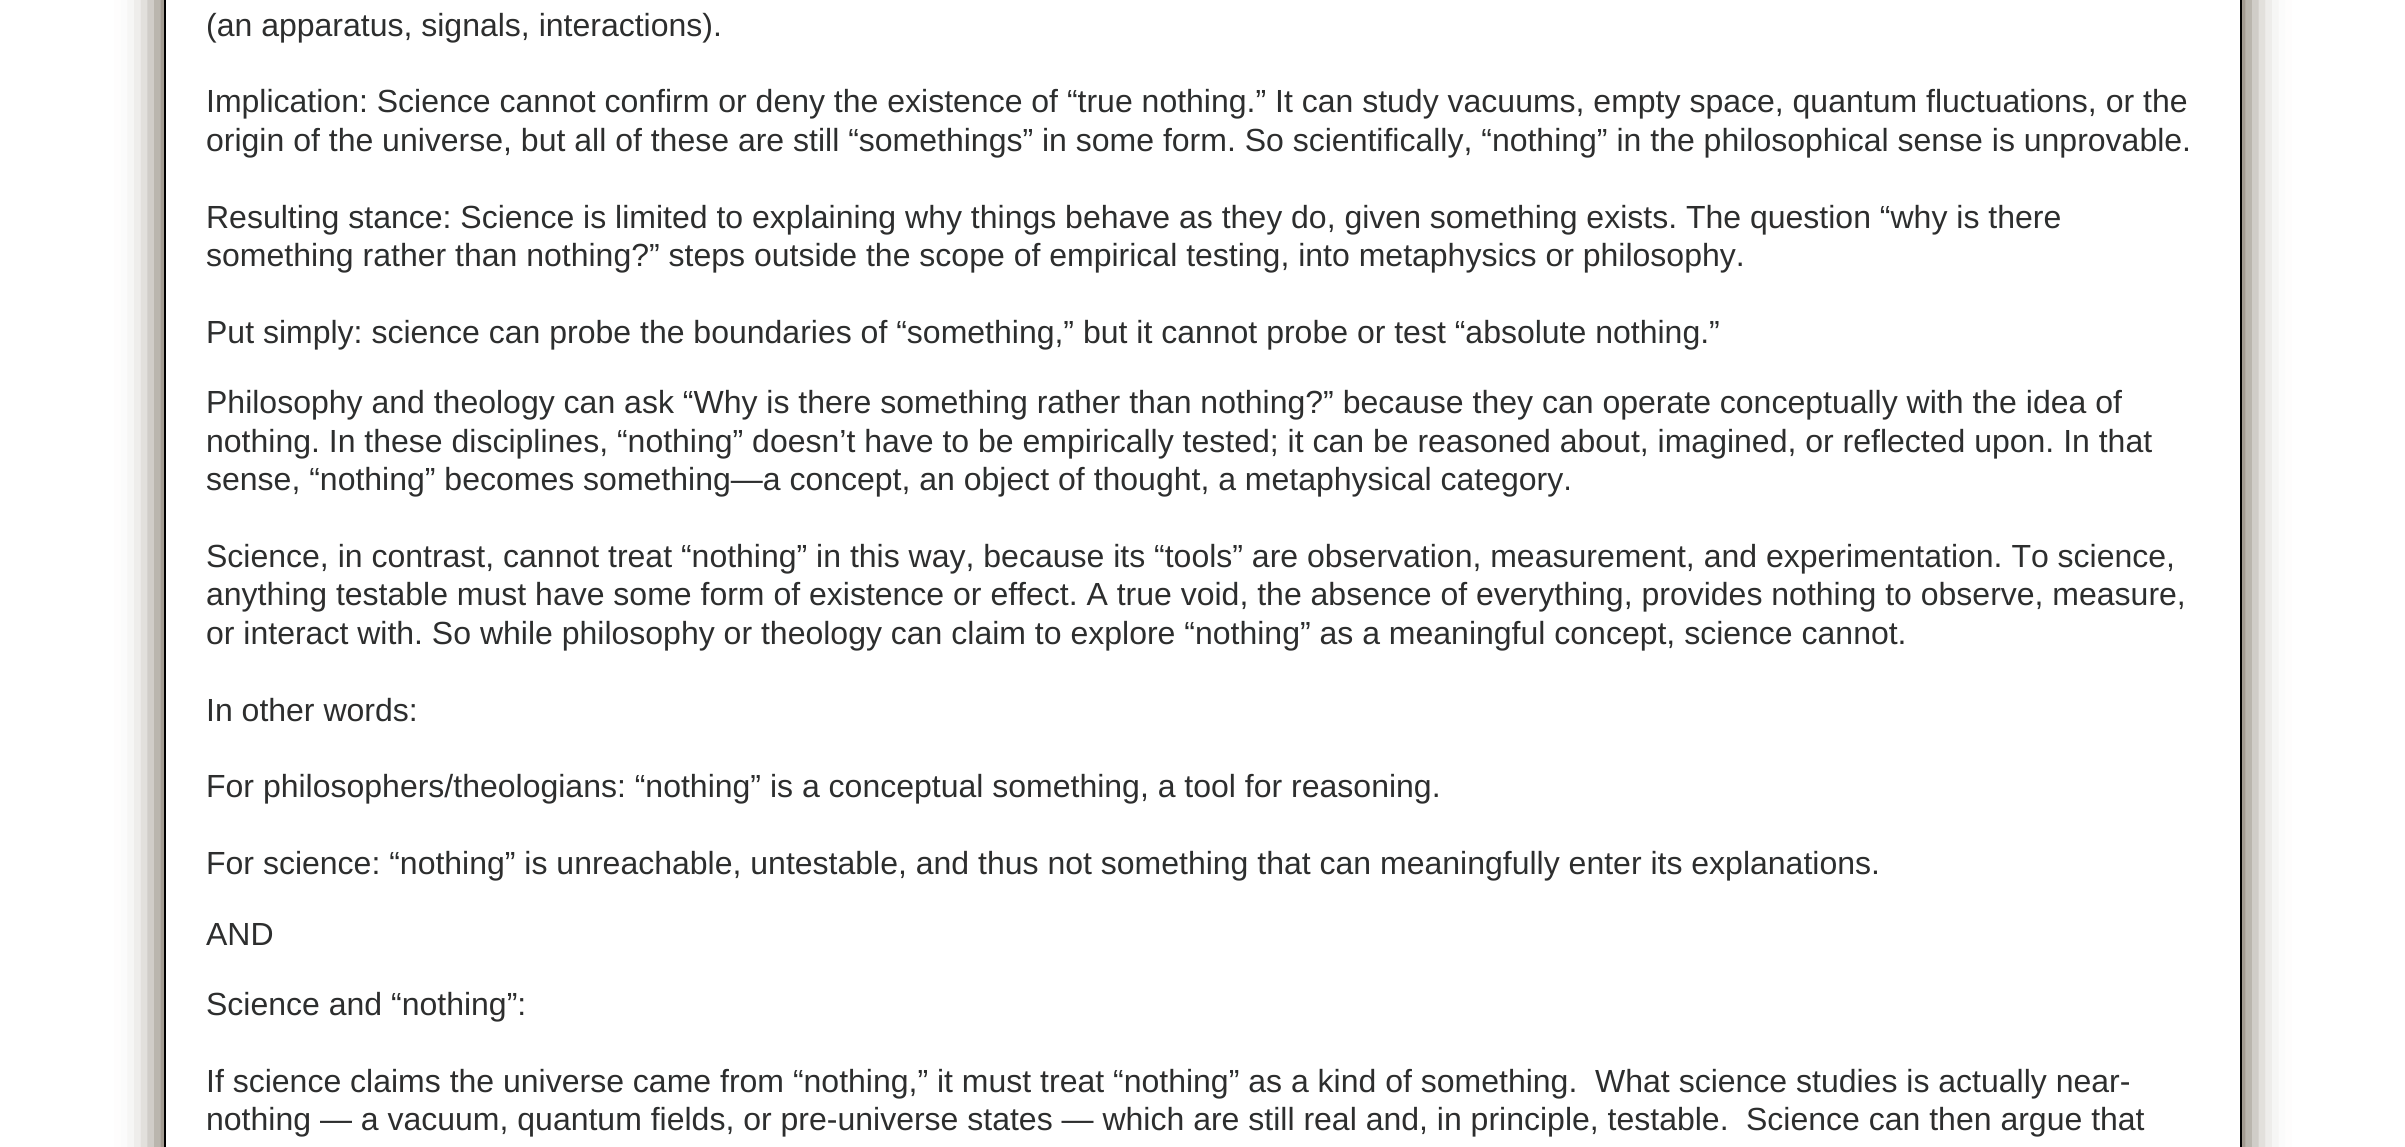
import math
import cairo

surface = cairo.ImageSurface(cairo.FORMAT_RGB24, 2405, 1147)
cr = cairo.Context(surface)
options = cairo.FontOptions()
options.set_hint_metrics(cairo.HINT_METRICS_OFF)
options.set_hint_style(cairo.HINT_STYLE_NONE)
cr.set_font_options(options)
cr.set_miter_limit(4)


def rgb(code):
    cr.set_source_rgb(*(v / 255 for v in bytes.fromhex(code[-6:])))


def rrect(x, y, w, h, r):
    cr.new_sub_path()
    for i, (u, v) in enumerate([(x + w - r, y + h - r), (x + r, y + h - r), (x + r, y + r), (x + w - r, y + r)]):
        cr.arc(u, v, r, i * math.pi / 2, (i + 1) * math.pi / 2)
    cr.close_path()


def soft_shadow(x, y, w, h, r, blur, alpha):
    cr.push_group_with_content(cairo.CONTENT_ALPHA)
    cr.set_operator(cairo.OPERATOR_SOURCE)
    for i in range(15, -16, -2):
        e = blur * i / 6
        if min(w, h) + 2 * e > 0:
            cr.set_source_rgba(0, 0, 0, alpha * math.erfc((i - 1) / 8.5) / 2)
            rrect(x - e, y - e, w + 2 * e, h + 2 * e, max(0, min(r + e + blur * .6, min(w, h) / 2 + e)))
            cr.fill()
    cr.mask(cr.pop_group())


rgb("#ffffff")
cr.paint()
cr.save()
cr.set_fill_rule(cairo.FILL_RULE_EVEN_ODD)
cr.new_path()
cr.move_to(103, 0)
cr.line_to(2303, 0)
cr.line_to(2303, 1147)
cr.line_to(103, 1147)
cr.close_path()
cr.move_to(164, -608)
cr.line_to(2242, -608)
cr.line_to(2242, 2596)
cr.line_to(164, 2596)
cr.close_path()
cr.clip()
rgb("#453823")
soft_shadow(164, -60, 2078, 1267, 0, 20, 1)
cr.restore()
cr.rectangle(165, -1, 2076, 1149)
rgb("#000000")
cr.stroke()
cr.select_font_face("Liberation Sans")
cr.set_font_size(32)
rgb("#2d2e2e")
for x, y, s in [
    (206, 36, "(an apparatus, signals, interactions)."),
    (206, 112, "Implication: Science cannot confirm or deny the existence of “true nothing.” It can study vacuums, empty space, quantum fluctuations, or the"),
    (206, 151, "origin of the universe, but all of these are still “somethings” in some form. So scientifically, “nothing” in the philosophical sense is unprovable."),
    (206, 228, "Resulting stance: Science is limited to explaining why things behave as they do, given something exists. The question “why is there"),
    (206, 266, "something rather than nothing?” steps outside the scope of empirical testing, into metaphysics or philosophy."),
    (206, 343, "Put simply: science can probe the boundaries of “something,” but it cannot probe or test “absolute nothing.”"),
    (206, 413, "Philosophy and theology can ask “Why is there something rather than nothing?” because they can operate conceptually with the idea of"),
    (206, 452, "nothing. In these disciplines, “nothing” doesn’t have to be empirically tested; it can be reasoned about, imagined, or reflected upon. In that"),
    (206, 490, "sense, “nothing” becomes something—a concept, an object of thought, a metaphysical category."),
    (206, 567, "Science, in contrast, cannot treat “nothing” in this way, because its “tools” are observation, measurement, and experimentation. To science,"),
    (206, 605, "anything testable must have some form of existence or effect. A true void, the absence of everything, provides nothing to observe, measure,"),
    (206, 644, "or interact with. So while philosophy or theology can claim to explore “nothing” as a meaningful concept, science cannot."),
    (206, 721, "In other words:"),
    (206, 797, "For philosophers/theologians: “nothing” is a conceptual something, a tool for reasoning."),
    (206, 874, "For science: “nothing” is unreachable, untestable, and thus not something that can meaningfully enter its explanations."),
    (206, 945, "AND"),
    (206, 1015, "Science and “nothing”:"),
    (206, 1092, "If science claims the universe came from “nothing,” it must treat “nothing” as a kind of something.  What science studies is actually near-"),
    (206, 1130, "nothing — a vacuum, quantum fields, or pre-universe states — which are still real and, in principle, testable."),
    (1746, 1130, "Science can then argue that"),
]:
    cr.move_to(x, y)
    cr.show_text(s)
surface.write_to_png("page.png")
